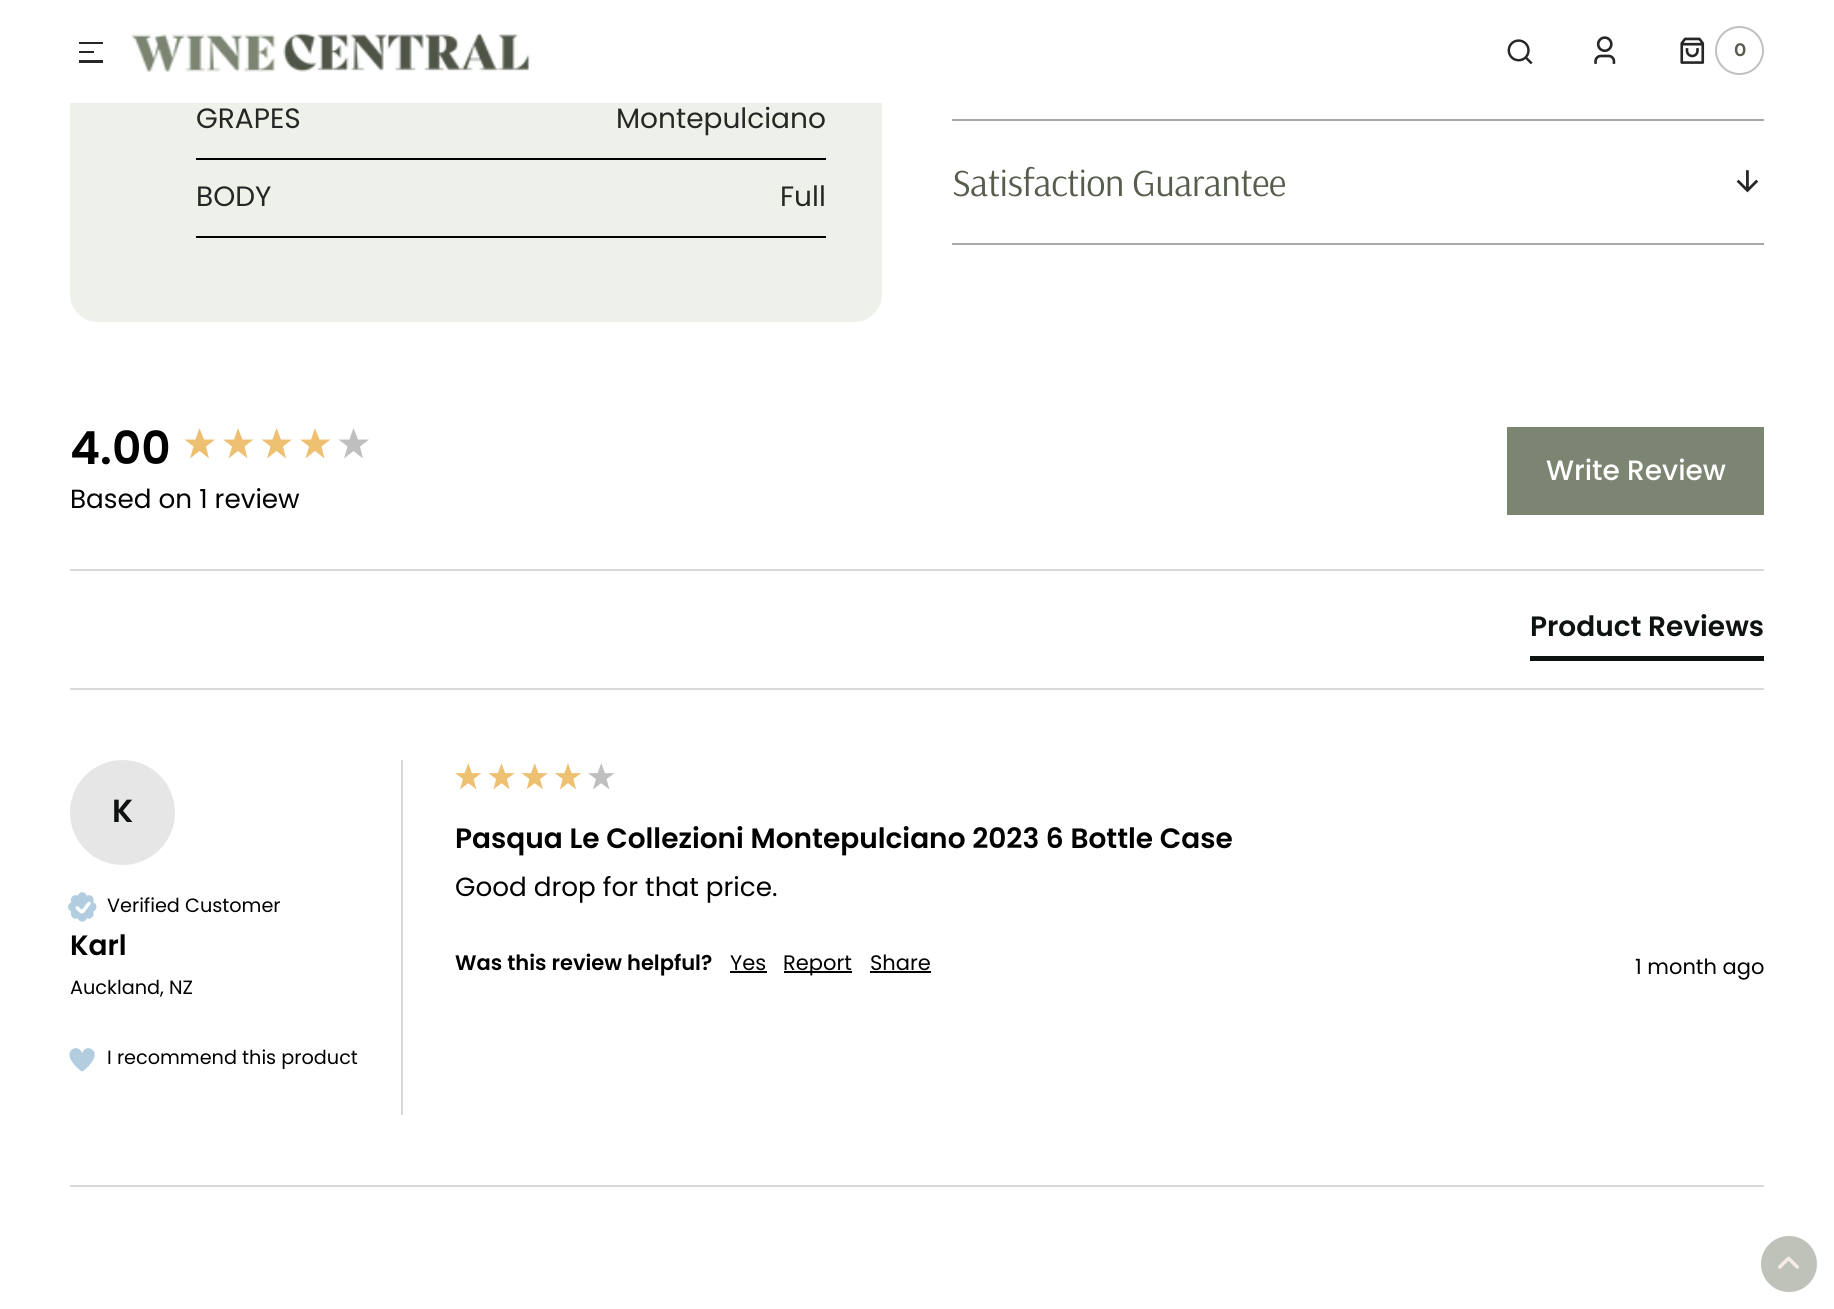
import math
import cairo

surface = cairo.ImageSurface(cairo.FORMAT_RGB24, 1834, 1309)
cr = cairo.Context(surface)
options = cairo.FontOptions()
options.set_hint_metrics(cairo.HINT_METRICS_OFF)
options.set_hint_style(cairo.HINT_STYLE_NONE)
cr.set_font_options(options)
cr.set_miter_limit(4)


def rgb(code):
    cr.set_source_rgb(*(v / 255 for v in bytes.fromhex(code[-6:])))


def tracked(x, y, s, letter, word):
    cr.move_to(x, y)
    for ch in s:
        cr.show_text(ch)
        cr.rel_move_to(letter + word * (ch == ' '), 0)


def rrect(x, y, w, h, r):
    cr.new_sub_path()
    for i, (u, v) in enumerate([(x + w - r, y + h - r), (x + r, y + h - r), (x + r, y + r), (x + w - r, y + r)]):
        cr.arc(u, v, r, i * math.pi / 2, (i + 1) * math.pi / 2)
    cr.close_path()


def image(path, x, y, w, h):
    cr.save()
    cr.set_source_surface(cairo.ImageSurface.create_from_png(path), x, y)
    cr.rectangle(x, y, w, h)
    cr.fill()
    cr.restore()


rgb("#ffffff")
cr.paint()
rgb("#eef1e9")
rrect(70, -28, 812, 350, 28)
cr.fill()
for x, y, w, h, color in [
    (70, 0, 812, 103, "#ffffff"),
    (79, 42, 24, 2, "#262626"),
    (79, 51, 15, 2, "#262626"),
    (79, 60, 24, 3, "#262626"),
]:
    rgb(color)
    cr.rectangle(x, y, w, h)
    cr.fill()
image("img/1.png", 131, 32, 400, 40)
image("img/2.png", 1507, 39, 26, 26)
image("img/3.png", 1594, 36, 22, 28)
image("img/4.png", 1680, 37, 25, 27)
cr.arc(1739.5, 50.5, 23.5, 0, 2 * math.pi)
rgb("#c1c1c1")
cr.stroke()
for x, y, w, h, color in [
    (196, 158, 630, 2, "#000000"),
    (196, 236, 630, 2, "#000000"),
    (952, 119, 812, 2, "#a8a8a8"),
    (952, 243, 812, 2, "#a8a8a8"),
]:
    rgb(color)
    cr.rectangle(x, y, w, h)
    cr.fill()
image("img/5.png", 1736, 170, 23, 23)
rgb("#d9d9d9")
cr.rectangle(70, 569, 1694, 2)
cr.fill()
rgb("#edc072")
cr.new_path()
cr.move_to(199.5, 428)
cr.line_to(195.5, 439.5)
cr.line_to(184.5, 439.5)
cr.line_to(193.5, 446.5)
cr.line_to(190, 458.5)
cr.line_to(199.5, 451)
cr.line_to(209, 458.5)
cr.line_to(206, 446.5)
cr.line_to(215, 439.5)
cr.line_to(204, 439.5)
cr.close_path()
cr.fill()
cr.new_path()
cr.move_to(238, 428)
cr.line_to(234, 439.5)
cr.line_to(223, 439.5)
cr.line_to(232, 446.5)
cr.line_to(228.5, 458.5)
cr.line_to(238, 451)
cr.line_to(247.5, 458.5)
cr.line_to(244.5, 446.5)
cr.line_to(253.5, 439.5)
cr.line_to(242.5, 439.5)
cr.close_path()
cr.fill()
cr.new_path()
cr.move_to(276.5, 428)
cr.line_to(272.5, 439.5)
cr.line_to(261.5, 439.5)
cr.line_to(270.5, 446.5)
cr.line_to(267, 458.5)
cr.line_to(276.5, 451)
cr.line_to(286, 458.5)
cr.line_to(283, 446.5)
cr.line_to(292, 439.5)
cr.line_to(281, 439.5)
cr.close_path()
cr.fill()
cr.new_path()
cr.move_to(315, 428)
cr.line_to(311, 439.5)
cr.line_to(300, 439.5)
cr.line_to(309, 446.5)
cr.line_to(305.5, 458.5)
cr.line_to(315, 451)
cr.line_to(324.5, 458.5)
cr.line_to(321.5, 446.5)
cr.line_to(330.5, 439.5)
cr.line_to(319.5, 439.5)
cr.close_path()
cr.fill()
gradient = cairo.LinearGradient(333, 443, 372, 443)
gradient.add_color_stop_rgba(0, 0.929, 0.753, 0.447, 1)
gradient.add_color_stop_rgba(0, 0.749, 0.749, 0.749, 1)
cr.set_source(gradient)
cr.new_path()
cr.move_to(353.5, 428)
cr.line_to(349.5, 439.5)
cr.line_to(338.5, 439.5)
cr.line_to(347.5, 446.5)
cr.line_to(344, 458.5)
cr.line_to(353.5, 451)
cr.line_to(363, 458.5)
cr.line_to(360, 446.5)
cr.line_to(369, 439.5)
cr.line_to(358, 439.5)
cr.close_path()
cr.fill()
for x, y, w, h, color in [
    (1507, 427, 257, 88, "#7c8572"),
    (70, 688, 1694, 2, "#d9d9d9"),
    (1530, 656, 234, 5, "#0e1311"),
    (70, 1185, 1694, 2, "#d9d9d9"),
    (401, 760, 2, 355, "#d9d9d9"),
]:
    rgb(color)
    cr.rectangle(x, y, w, h)
    cr.fill()
rgb("#e6e6e6")
cr.arc(122.5, 812.5, 52.5, 0, 2 * math.pi)
cr.fill()
image("img/6.png", 68, 892, 29, 30)
image("img/7.png", 69, 1048, 26, 24)
image("img/8.png", 455, 763, 27, 27)
image("img/9.png", 488, 763, 27, 27)
image("img/10.png", 521, 763, 27, 27)
image("img/11.png", 555, 763, 26, 27)
image("img/12.png", 588, 763, 26, 27)
for x, y, w, h, color in [
    (730, 971, 37, 2, "#000000"),
    (784, 971, 68, 2, "#000000"),
    (870, 971, 61, 2, "#000000"),
]:
    rgb(color)
    cr.rectangle(x, y, w, h)
    cr.fill()
rgb("#bec2b9")
cr.arc(1789, 1264, 28, 0, 2 * math.pi)
cr.fill()
image("img/13.png", 1778, 1256, 21, 13)
cr.select_font_face("DM Sans", cairo.FONT_SLANT_NORMAL, cairo.FONT_WEIGHT_BOLD)
cr.set_font_size(18)
rgb("#565d4c")
cr.move_to(1734, 56)
cr.show_text("0")
cr.select_font_face("Poppins")
cr.set_font_size(28)
rgb("#262626")
for x, y, s in [
    (196, 128, "GRAPES"),
    (616, 128, "Montepulciano"),
    (196, 206, "BODY"),
    (780, 206, "Full"),
]:
    cr.move_to(x, y)
    cr.show_text(s)
cr.select_font_face("Arsenal")
cr.set_font_size(38.5)
rgb("#565d4c")
tracked(952, 196, "Satisfaction Guarantee", -0.75, 0)
cr.select_font_face("Poppins SemiBold")
cr.set_font_size(45.5)
rgb("#000000")
cr.move_to(70, 464)
cr.show_text("4.00")
cr.select_font_face("Poppins")
cr.set_font_size(26.25)
cr.move_to(70, 508)
cr.show_text("Based on 1 review")
cr.select_font_face("Poppins Medium")
cr.set_font_size(28)
rgb("#ffffff")
cr.move_to(1546, 480)
cr.show_text("Write Review")
cr.select_font_face("Poppins SemiBold")
rgb("#0e1311")
cr.move_to(1530, 636)
cr.show_text("Product Reviews")
cr.set_font_size(32)
cr.move_to(112, 822)
cr.show_text("K")
cr.select_font_face("Poppins")
cr.set_font_size(19.25)
rgb("#000000")
cr.move_to(107, 912)
cr.show_text("Verified Customer")
cr.select_font_face("Poppins SemiBold")
cr.set_font_size(28)
cr.move_to(70, 955)
cr.show_text("Karl")
cr.select_font_face("Poppins")
cr.set_font_size(19.25)
cr.move_to(70, 994)
cr.show_text("Auckland, NZ")
cr.move_to(107, 1064)
cr.show_text("I recommend this product")
cr.select_font_face("Poppins SemiBold")
cr.set_font_size(28)
cr.move_to(455, 848)
cr.show_text("Pasqua Le Collezioni Montepulciano 2023 6 Bottle Case")
cr.select_font_face("Poppins")
cr.set_font_size(26.25)
cr.move_to(455, 896)
cr.show_text("Good drop for that price.")
cr.select_font_face("Poppins SemiBold")
cr.set_font_size(21)
cr.move_to(455, 970)
cr.show_text("Was this review helpful?")
cr.select_font_face("Poppins")
for x, y, s in [
    (730, 970, "Yes"),
    (783, 970, "Report"),
    (870, 970, "Share"),
    (1635, 974, "1 month ago"),
]:
    cr.move_to(x, y)
    cr.show_text(s)
surface.write_to_png("page.png")
